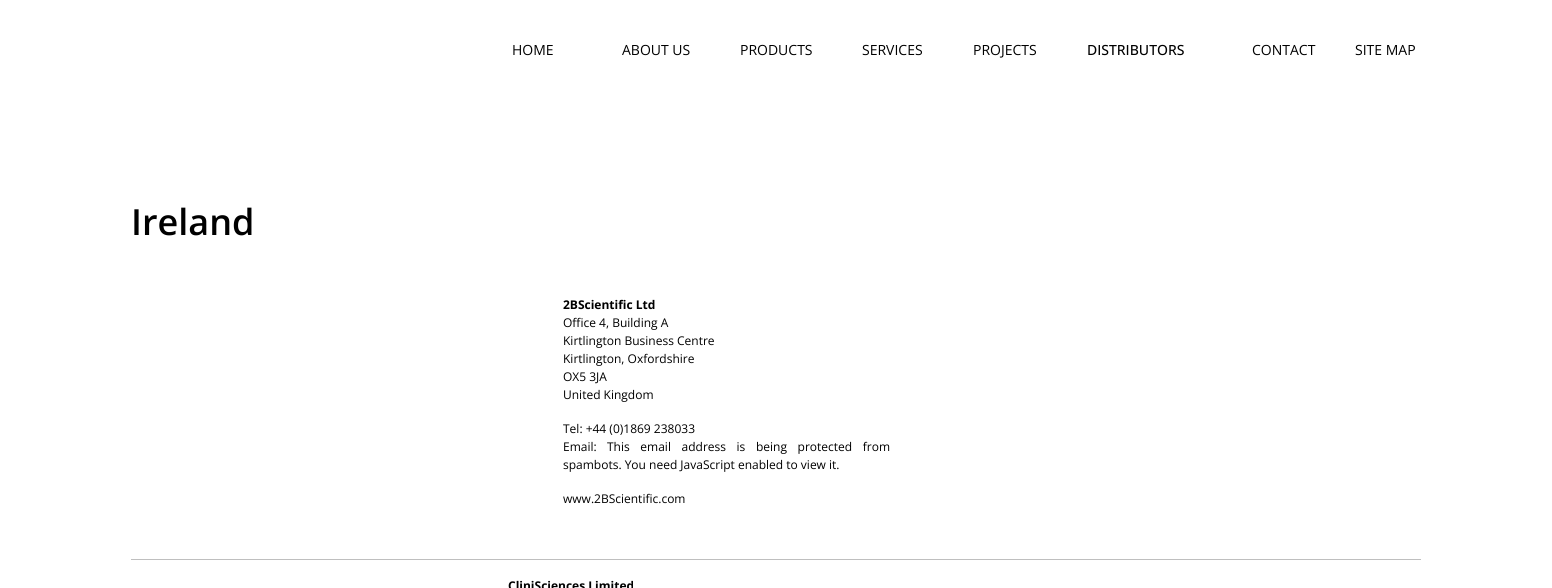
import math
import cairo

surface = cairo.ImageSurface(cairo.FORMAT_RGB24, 1552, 588)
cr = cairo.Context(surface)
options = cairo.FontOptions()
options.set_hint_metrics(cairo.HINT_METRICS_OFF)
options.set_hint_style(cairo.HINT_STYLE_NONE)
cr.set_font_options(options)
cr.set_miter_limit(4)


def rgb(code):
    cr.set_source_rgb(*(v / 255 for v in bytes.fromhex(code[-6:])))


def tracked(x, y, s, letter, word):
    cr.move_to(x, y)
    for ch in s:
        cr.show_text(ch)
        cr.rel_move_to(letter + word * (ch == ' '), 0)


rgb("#ffffff")
cr.paint()
rgb("#bfbfbf")
cr.rectangle(131, 559, 1290, 1)
cr.fill()
cr.select_font_face("Open Sans")
cr.set_font_size(14)
rgb("#000000")
for x, y, s in [
    (512, 55, "HOME"),
    (622, 55, "ABOUT US"),
    (740, 55, "PRODUCTS"),
    (862, 55, "SERVICES"),
    (973, 55, "PROJECTS"),
]:
    cr.move_to(x, y)
    cr.show_text(s)
cr.select_font_face("Open Sans Medium")
cr.move_to(1087, 55)
cr.show_text("DISTRIBUTORS")
cr.select_font_face("Open Sans")
cr.move_to(1252, 55)
cr.show_text("CONTACT")
cr.move_to(1355, 55)
cr.show_text("SITE MAP")
cr.select_font_face("Open Sans SemiBold")
cr.set_font_size(36)
cr.move_to(131, 235)
cr.show_text("Ireland")
cr.select_font_face("Open Sans", cairo.FONT_SLANT_NORMAL, cairo.FONT_WEIGHT_BOLD)
cr.set_font_size(12)
cr.move_to(563, 309)
cr.show_text("2BScientific Ltd")
cr.select_font_face("Open Sans")
for x, y, s in [
    (563, 327, "Office 4, Building A"),
    (563, 345, "Kirtlington Business Centre"),
    (563, 363, "Kirtlington, Oxfordshire"),
    (563, 381, "OX5 3JA"),
    (563, 399, "United Kingdom"),
    (563, 433, "Tel: +44 (0)1869 238033"),
    (563, 451, "Email:"),
]:
    cr.move_to(x, y)
    cr.show_text(s)
tracked(607, 451, "This email address is being protected from", 0, 7.5)
cr.move_to(563, 469)
cr.show_text("spambots. You need JavaScript enabled to view it.")
cr.move_to(563, 503)
cr.show_text("www.2BScientific.com")
cr.select_font_face("Open Sans", cairo.FONT_SLANT_NORMAL, cairo.FONT_WEIGHT_BOLD)
cr.move_to(508, 590)
cr.show_text("CliniSciences Limited")
surface.write_to_png("page.png")
